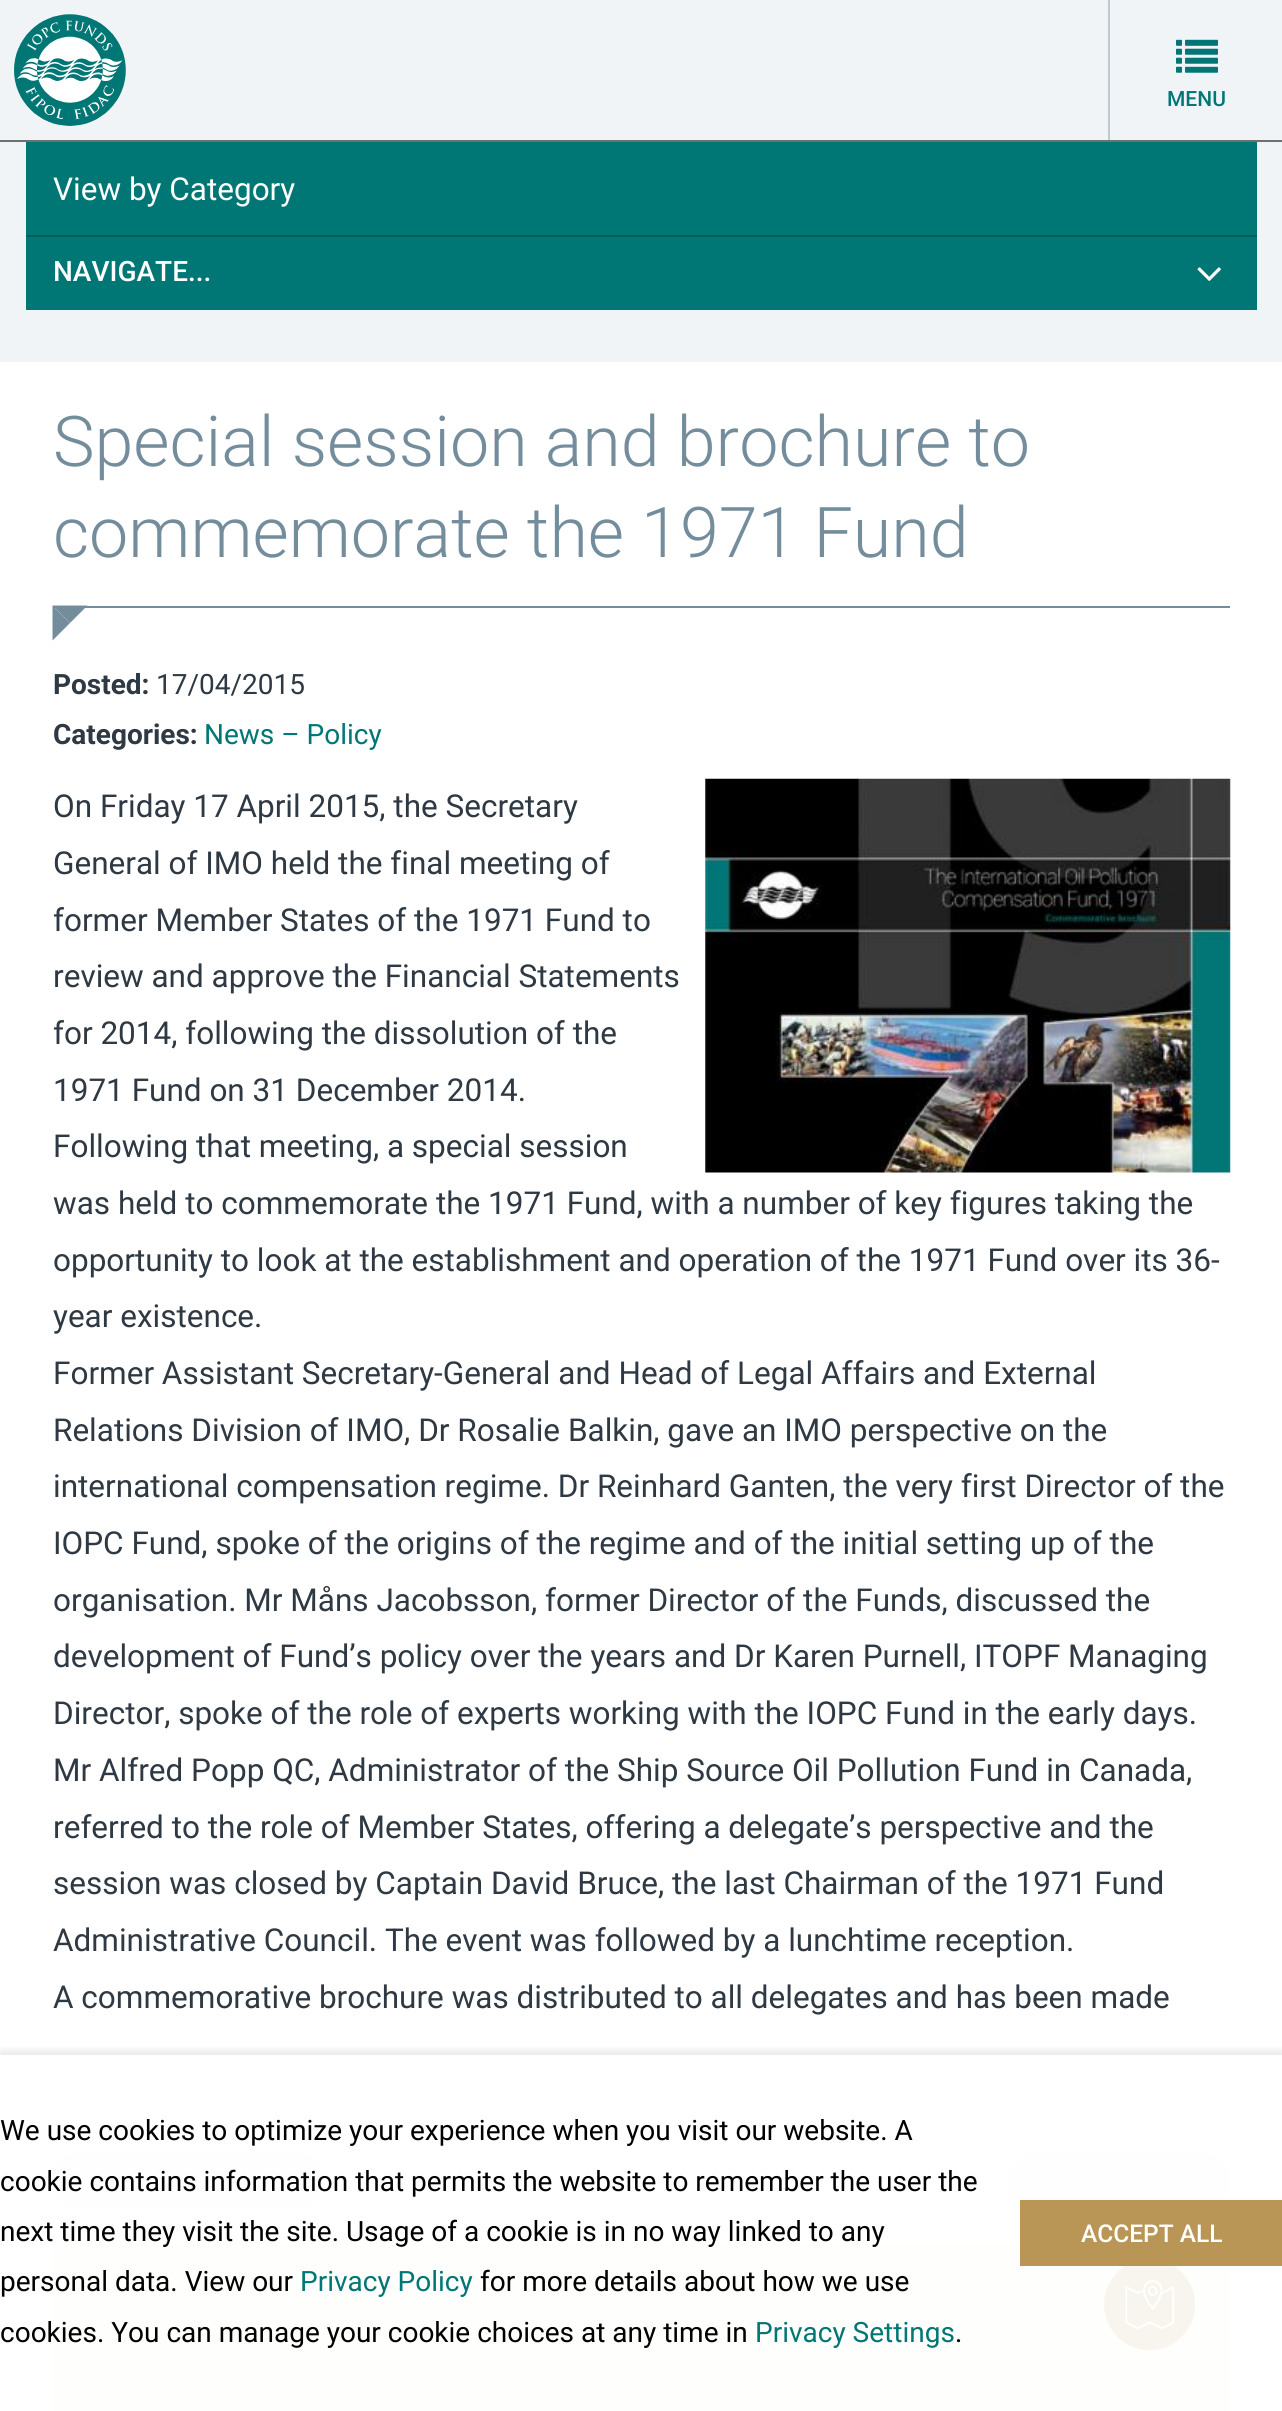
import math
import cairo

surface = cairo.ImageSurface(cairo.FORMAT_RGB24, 1282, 2411)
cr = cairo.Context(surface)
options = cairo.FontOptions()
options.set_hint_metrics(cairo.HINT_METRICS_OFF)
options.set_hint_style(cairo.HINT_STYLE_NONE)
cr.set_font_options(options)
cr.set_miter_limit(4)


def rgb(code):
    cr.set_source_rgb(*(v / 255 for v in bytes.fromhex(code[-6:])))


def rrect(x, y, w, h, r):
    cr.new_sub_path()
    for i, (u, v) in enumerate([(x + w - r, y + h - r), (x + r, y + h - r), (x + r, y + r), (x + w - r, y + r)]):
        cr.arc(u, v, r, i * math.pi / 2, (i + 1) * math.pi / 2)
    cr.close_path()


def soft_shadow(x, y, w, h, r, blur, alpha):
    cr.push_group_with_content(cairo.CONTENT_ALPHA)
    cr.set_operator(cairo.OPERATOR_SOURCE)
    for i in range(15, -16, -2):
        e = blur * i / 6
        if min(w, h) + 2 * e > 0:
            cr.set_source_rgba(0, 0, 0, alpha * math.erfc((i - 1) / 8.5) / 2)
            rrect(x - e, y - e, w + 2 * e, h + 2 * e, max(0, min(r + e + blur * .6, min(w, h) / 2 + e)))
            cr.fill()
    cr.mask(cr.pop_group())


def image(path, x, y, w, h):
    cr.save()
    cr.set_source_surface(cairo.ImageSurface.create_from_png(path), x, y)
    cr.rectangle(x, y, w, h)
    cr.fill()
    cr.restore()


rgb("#f0f4f7")
cr.paint()
rgb("#707070")
cr.rectangle(0, 140, 1282, 2)
cr.fill()
image("img/1.png", 14, 14, 112, 112)
rgb("#becad1")
cr.rectangle(1108, 0, 2, 140)
cr.fill()
image("img/2.png", 1176, 39, 42, 34)
rgb("#007675")
cr.rectangle(26, 142, 1231, 168)
cr.fill()
rgb("#005d5c")
cr.rectangle(26, 235, 1231, 2)
cr.fill()
image("img/3.png", 1197, 267, 24, 14)
rgb("#ffffff")
cr.rectangle(0, 362, 1282, 2049)
cr.fill()
rgb("#748d9c")
cr.rectangle(53, 606, 1177, 2)
cr.fill()
cr.new_path()
cr.move_to(52.5, 605.5)
cr.line_to(87.5, 605.5)
cr.line_to(70, 623)
cr.close_path()
cr.fill()
cr.new_path()
cr.move_to(52.5, 640.5)
cr.line_to(52.5, 605.5)
cr.line_to(70, 623)
cr.close_path()
cr.fill()
image("img/4.png", 705, 778, 526, 395)
rgb("#f0f4f7")
rrect(53, 2153, 271, 57, 26)
cr.fill()
rrect(1008, 2153, 222, 57, 26)
cr.fill()
rgb("#f5f0e6")
cr.rectangle(53, 2245, 1177, 166)
cr.fill()
rgb("#b99656")
cr.arc(1149.5, 2304.5, 45.5, 0, 2 * math.pi)
cr.fill()
image("img/5.png", 1125, 2280, 50, 50)
cr.save()
cr.rectangle(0, 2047, 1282, 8)
cr.clip()
rgb("#000000")
soft_shadow(0, 2051, 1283, 357, 0, 5, 0.1)
cr.restore()
cr.set_source_rgba(1, 1, 1, 0.9)
cr.rectangle(53, 2153, 1177, 258)
cr.fill()
rgb("#b99656")
cr.rectangle(1020, 2200, 262, 66)
cr.fill()
cr.select_font_face("Roboto Medium")
cr.set_font_size(21)
rgb("#007675")
cr.move_to(1167, 106)
cr.show_text("MENU")
cr.select_font_face("Roboto")
cr.set_font_size(31.5)
rgb("#ffffff")
cr.move_to(53, 200)
cr.show_text("View by Category")
cr.select_font_face("Roboto Medium")
cr.set_font_size(28)
cr.move_to(53, 281)
cr.show_text("NAVIGATE...")
cr.select_font_face("Roboto Light")
cr.set_font_size(70)
rgb("#748d9c")
cr.move_to(53, 466)
cr.show_text("Special session and brochure to")
cr.move_to(53, 557)
cr.show_text("commemorate the 1971 Fund")
cr.select_font_face("Roboto", cairo.FONT_SLANT_NORMAL, cairo.FONT_WEIGHT_BOLD)
cr.set_font_size(28)
rgb("#2e3943")
cr.move_to(53, 694)
cr.show_text("Posted:")
cr.select_font_face("Roboto")
cr.move_to(156, 694)
cr.show_text("17/04/2015")
cr.select_font_face("Roboto", cairo.FONT_SLANT_NORMAL, cairo.FONT_WEIGHT_BOLD)
cr.move_to(53, 744)
cr.show_text("Categories:")
cr.select_font_face("Roboto")
rgb("#007675")
cr.move_to(204, 744)
cr.show_text("News – Policy")
cr.set_font_size(31.5)
rgb("#2e3943")
for x, y, s in [
    (53, 817, "On Friday 17 April 2015, the Secretary"),
    (53, 874, "General of IMO held the final meeting of"),
    (53, 931, "former Member States of the 1971 Fund to"),
    (53, 987, "review and approve the Financial Statements"),
    (53, 1044, "for 2014, following the dissolution of the"),
    (53, 1101, "1971 Fund on 31 December 2014."),
    (53, 1157, "Following that meeting, a special session"),
    (53, 1214, "was held to commemorate the 1971 Fund, with a number of key figures taking the"),
    (53, 1271, "opportunity to look at the establishment and operation of the 1971 Fund over its 36-"),
    (53, 1327, "year existence."),
    (53, 1384, "Former Assistant Secretary-General and Head of Legal Affairs and External"),
    (53, 1441, "Relations Division of IMO, Dr Rosalie Balkin, gave an IMO perspective on the"),
    (53, 1497, "international compensation regime. Dr Reinhard Ganten, the very first Director of the"),
    (53, 1554, "IOPC Fund, spoke of the origins of the regime and of the initial setting up of the"),
    (53, 1611, "organisation. Mr Måns Jacobsson, former Director of the Funds, discussed the"),
    (53, 1667, "development of Fund’s policy over the years and Dr Karen Purnell, ITOPF Managing"),
    (53, 1724, "Director, spoke of the role of experts working with the IOPC Fund in the early days."),
    (53, 1781, "Mr Alfred Popp QC, Administrator of the Ship Source Oil Pollution Fund in Canada,"),
    (53, 1838, "referred to the role of Member States, offering a delegate’s perspective and the"),
    (53, 1894, "session was closed by Captain David Bruce, the last Chairman of the 1971 Fund"),
    (53, 1951, "Administrative Council. The event was followed by a lunchtime reception."),
    (53, 2008, "A commemorative brochure was distributed to all delegates and has been made"),
]:
    cr.move_to(x, y)
    cr.show_text(s)
cr.set_font_size(28)
rgb("#000000")
for x, y, s in [
    (0, 2140, "We use cookies to optimize your experience when you visit our website. A"),
    (0, 2191, "cookie contains information that permits the website to remember the user the"),
    (0, 2241, "next time they visit the site. Usage of a cookie is in no way linked to any"),
    (0, 2291, "personal data. View our"),
]:
    cr.move_to(x, y)
    cr.show_text(s)
rgb("#007675")
cr.move_to(300, 2291)
cr.show_text("Privacy Policy")
rgb("#000000")
cr.move_to(480, 2291)
cr.show_text("for more details about how we use")
cr.move_to(0, 2342)
cr.show_text("cookies. You can manage your cookie choices at any time in")
rgb("#007675")
cr.move_to(755, 2342)
cr.show_text("Privacy Settings")
rgb("#000000")
cr.move_to(955, 2342)
cr.show_text(".")
cr.select_font_face("Roboto Medium")
cr.set_font_size(24.5)
rgb("#ffffff")
cr.move_to(1081, 2242)
cr.show_text("ACCEPT ALL")
surface.write_to_png("page.png")
